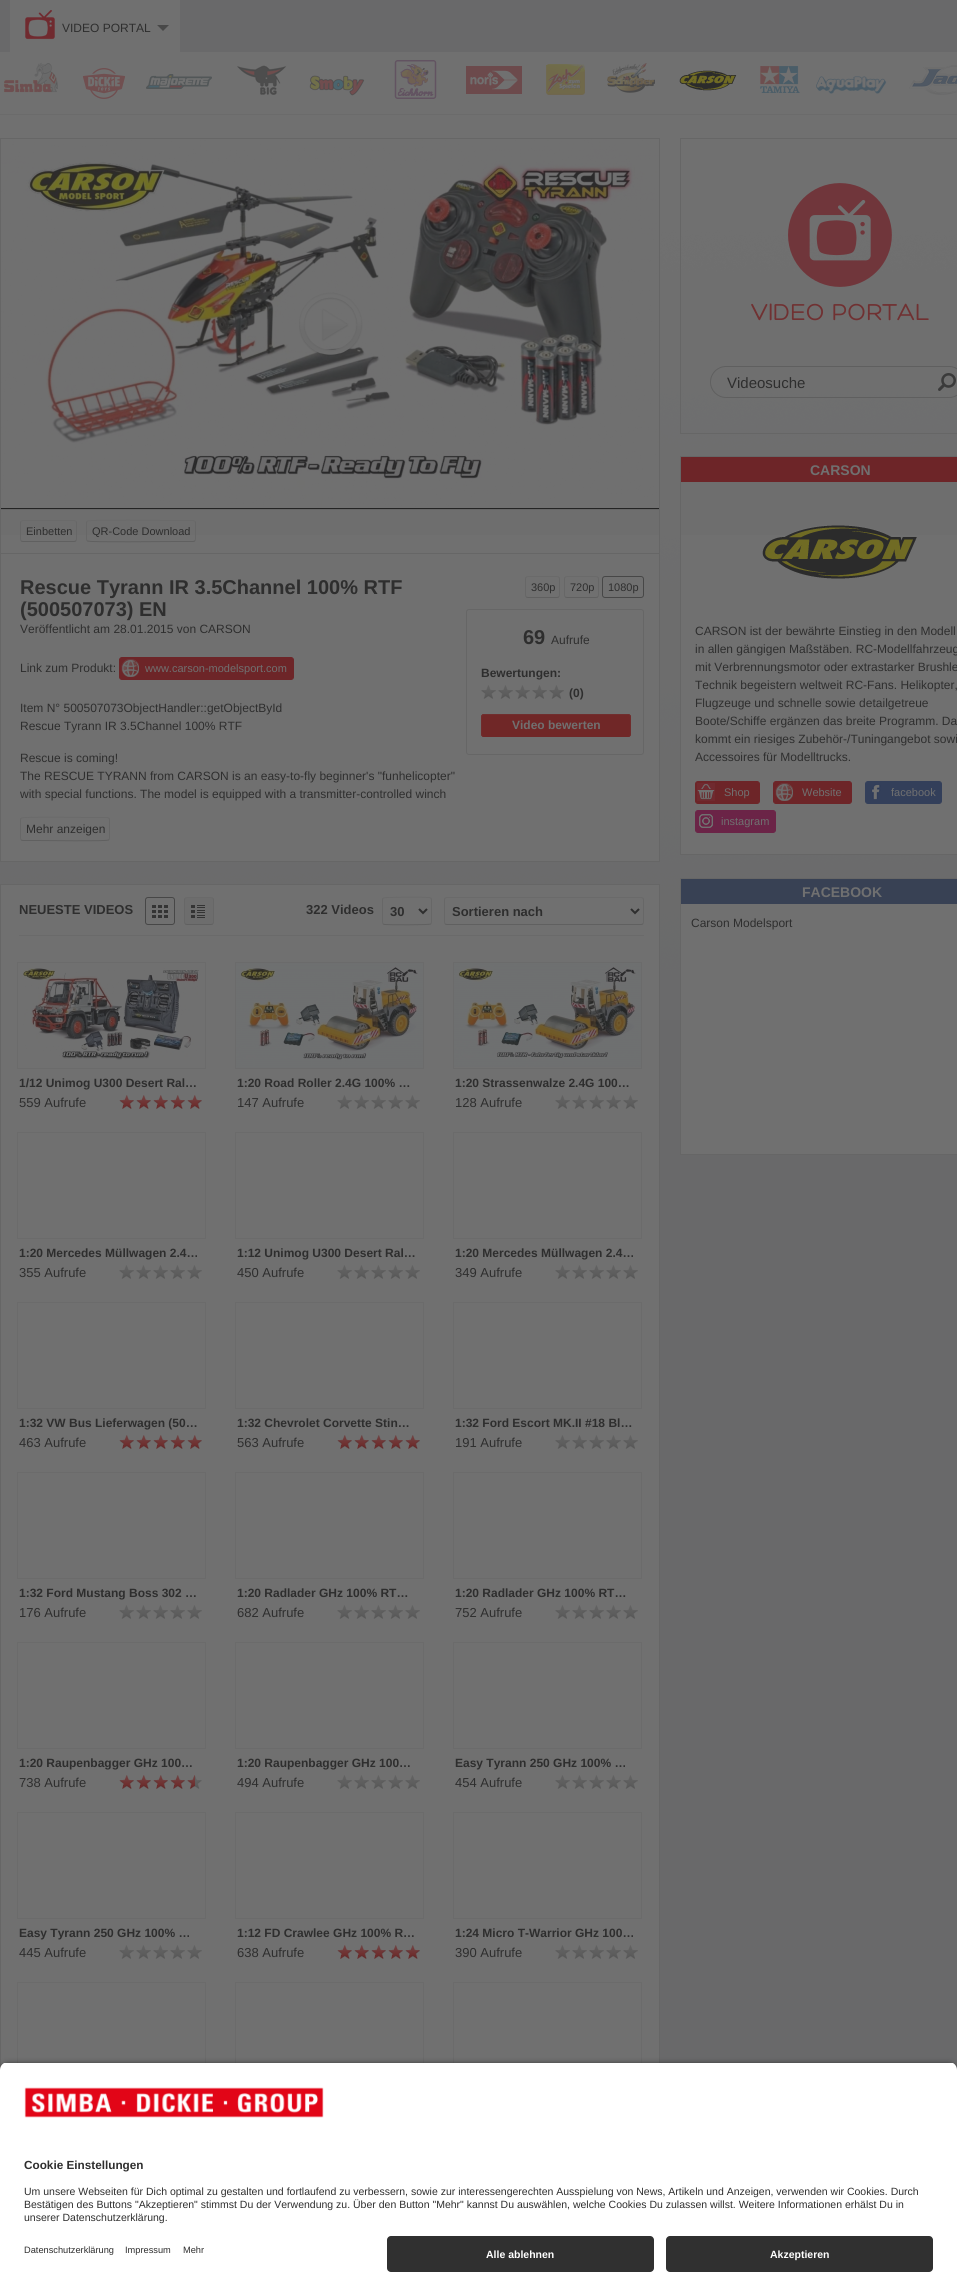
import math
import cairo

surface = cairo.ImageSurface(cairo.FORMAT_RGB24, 957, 2296)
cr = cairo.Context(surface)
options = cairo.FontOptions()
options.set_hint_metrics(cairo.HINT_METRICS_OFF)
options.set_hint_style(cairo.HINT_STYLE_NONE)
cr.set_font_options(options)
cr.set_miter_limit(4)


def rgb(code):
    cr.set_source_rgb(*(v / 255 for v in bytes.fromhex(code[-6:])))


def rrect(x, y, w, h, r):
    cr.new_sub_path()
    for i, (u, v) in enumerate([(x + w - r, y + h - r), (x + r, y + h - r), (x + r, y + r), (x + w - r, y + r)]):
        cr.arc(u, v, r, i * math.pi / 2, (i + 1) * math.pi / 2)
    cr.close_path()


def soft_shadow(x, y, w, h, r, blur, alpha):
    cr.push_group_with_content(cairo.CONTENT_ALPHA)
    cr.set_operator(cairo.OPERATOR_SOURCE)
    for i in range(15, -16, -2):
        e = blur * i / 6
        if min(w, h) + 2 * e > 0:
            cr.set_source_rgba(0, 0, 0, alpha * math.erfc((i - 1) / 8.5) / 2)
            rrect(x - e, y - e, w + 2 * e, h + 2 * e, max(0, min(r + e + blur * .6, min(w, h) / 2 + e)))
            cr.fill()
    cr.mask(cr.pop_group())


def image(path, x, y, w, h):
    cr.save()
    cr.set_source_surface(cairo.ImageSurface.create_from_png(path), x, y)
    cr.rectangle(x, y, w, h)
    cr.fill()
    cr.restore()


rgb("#69696a")
cr.paint()
image("img/1.png", 0, 52, 957, 968)
rgb("#707070")
cr.rectangle(10, 0, 170, 52)
cr.fill()
image("img/2.png", 25, 10, 30, 30)
rgb("#484848")
cr.new_path()
cr.move_to(157, 25)
cr.line_to(169, 25)
cr.line_to(163, 31)
cr.close_path()
cr.fill()
rgb("#6b6b6b")
cr.rectangle(0, 114, 957, 1)
cr.fill()
image("img/3.png", 4, 62, 54, 31)
image("img/4.png", 82, 68, 44, 31)
image("img/5.png", 146, 74, 66, 15)
image("img/6.png", 237, 65, 50, 30)
image("img/7.png", 309, 75, 56, 21)
image("img/8.png", 394, 60, 43, 39)
image("img/9.png", 466, 66, 56, 28)
image("img/10.png", 546, 64, 39, 31)
image("img/11.png", 607, 63, 48, 30)
image("img/12.png", 679, 70, 58, 21)
image("img/13.png", 760, 66, 40, 27)
image("img/14.png", 816, 76, 71, 18)
image("img/15.png", 909, 65, 48, 30)
rgb("#707070")
cr.rectangle(1, 535, 658, 326)
cr.fill()
cr.rectangle(0.5, 138.5, 659, 723)
rgb("#666666")
cr.set_line_width(1)
cr.stroke()
rgb("#242424")
cr.rectangle(1, 508, 658, 1)
cr.fill()
image("img/16.png", 1, 139, 658, 369)
image("img/17.png", 299, 292, 64, 64)
rgb("#666666")
cr.rectangle(1, 509, 658, 1)
cr.fill()
cr.rectangle(1, 553, 658, 1)
cr.fill()
cr.new_path()
cr.move_to(21, 521)
cr.line_to(23, 520.5)
cr.line_to(74, 520.5)
cr.line_to(76, 521)
rgb("#6a6a6a")
cr.stroke()
cr.new_path()
cr.move_to(76, 521)
cr.curve_to(76, 521.5, 76.5, 522.5, 76.5, 523)
cr.line_to(76.5, 539)
cr.curve_to(76.5, 539.5, 76, 540.5, 76, 541)
rgb("#676767")
cr.stroke()
cr.new_path()
cr.move_to(76, 541)
cr.line_to(74, 541.5)
cr.line_to(23, 541.5)
cr.line_to(21, 541)
rgb("#606060")
cr.stroke()
cr.new_path()
cr.move_to(21, 541)
cr.curve_to(21, 540.5, 20.5, 539.5, 20.5, 539)
cr.line_to(20.5, 523)
cr.curve_to(20.5, 522.5, 21, 521.5, 21, 521)
rgb("#676767")
cr.stroke()
cr.new_path()
cr.move_to(87, 521)
cr.line_to(87.5, 521)
cr.curve_to(89.5, 519.5, 167, 520.5, 175.5, 520.5)
cr.line_to(193, 520.5)
cr.line_to(195, 521)
rgb("#6a6a6a")
cr.stroke()
cr.new_path()
cr.move_to(195, 521)
cr.curve_to(195, 521.5, 195.5, 522.5, 195.5, 523)
cr.line_to(195.5, 539)
cr.curve_to(195.5, 539.5, 195, 540.5, 195, 541)
rgb("#676767")
cr.stroke()
cr.new_path()
cr.move_to(195, 541)
cr.line_to(193, 541.5)
cr.line_to(175.5, 541.5)
cr.curve_to(167, 541.5, 89.5, 542.5, 87.5, 541)
cr.line_to(87, 541)
rgb("#606060")
cr.stroke()
cr.new_path()
cr.move_to(87, 541)
cr.curve_to(87, 540.5, 86.5, 539.5, 86.5, 539)
cr.line_to(86.5, 523)
cr.curve_to(86.5, 522.5, 87, 521.5, 87, 521)
rgb("#676767")
cr.stroke()
rgb("#6d2528")
rrect(119.5, 657.5, 174, 22, 2.5)
cr.fill_preserve()
cr.stroke()
image("img/18.png", 121, 659, 18, 18)
cr.new_path()
cr.move_to(21, 818)
cr.line_to(21.5, 818)
cr.curve_to(23.5, 816.5, 85.5, 817.5, 93, 817.5)
cr.line_to(107, 817.5)
cr.line_to(109, 818)
rgb("#6a6a6a")
cr.stroke()
cr.new_path()
cr.move_to(109, 818)
cr.curve_to(109, 818.5, 109.5, 819.5, 109.5, 820)
cr.line_to(109.5, 838)
cr.curve_to(109.5, 838.5, 109, 839.5, 109, 840)
rgb("#676767")
cr.stroke()
cr.new_path()
cr.move_to(109, 840)
cr.line_to(108.5, 840)
cr.curve_to(106.5, 841.5, 44.5, 840.5, 37, 840.5)
cr.line_to(23, 840.5)
cr.line_to(21, 840)
rgb("#606060")
cr.stroke()
cr.new_path()
cr.move_to(21, 840)
cr.curve_to(21, 839.5, 20.5, 838.5, 20.5, 838)
cr.line_to(20.5, 820)
cr.curve_to(20.5, 819.5, 21, 818.5, 21, 818)
rgb("#676767")
cr.stroke()
cr.new_path()
cr.move_to(526, 577)
cr.curve_to(526.5, 577, 527.5, 576.5, 528, 576.5)
cr.line_to(557, 576.5)
cr.curve_to(557.5, 576.5, 558.5, 577, 559, 577)
rgb("#6a6a6a")
cr.stroke()
cr.new_path()
cr.move_to(559, 577)
cr.curve_to(559, 577.5, 559.5, 578.5, 559.5, 579)
cr.line_to(559.5, 595)
cr.curve_to(559.5, 595.5, 559, 596.5, 559, 597)
rgb("#676767")
cr.stroke()
cr.new_path()
cr.move_to(559, 597)
cr.curve_to(558.5, 597, 557.5, 597.5, 557, 597.5)
cr.line_to(528, 597.5)
cr.curve_to(527.5, 597.5, 526.5, 597, 526, 597)
rgb("#606060")
cr.stroke()
cr.new_path()
cr.move_to(526, 597)
cr.curve_to(526, 596.5, 525.5, 595.5, 525.5, 595)
cr.line_to(525.5, 579)
cr.curve_to(525.5, 578.5, 526, 577.5, 526, 577)
rgb("#676767")
cr.stroke()
cr.new_path()
cr.move_to(565, 577)
cr.curve_to(565.5, 577, 566.5, 576.5, 567, 576.5)
cr.line_to(596, 576.5)
cr.curve_to(596.5, 576.5, 597.5, 577, 598, 577)
rgb("#6a6a6a")
cr.stroke()
cr.new_path()
cr.move_to(598, 577)
cr.curve_to(598, 577.5, 598.5, 578.5, 598.5, 579)
cr.line_to(598.5, 595)
cr.curve_to(598.5, 595.5, 598, 596.5, 598, 597)
rgb("#676767")
cr.stroke()
cr.new_path()
cr.move_to(598, 597)
cr.curve_to(597.5, 597, 596.5, 597.5, 596, 597.5)
cr.line_to(567, 597.5)
cr.curve_to(566.5, 597.5, 565.5, 597, 565, 597)
rgb("#606060")
cr.stroke()
cr.new_path()
cr.move_to(565, 597)
cr.curve_to(565, 596.5, 564.5, 595.5, 564.5, 595)
cr.line_to(564.5, 579)
cr.curve_to(564.5, 578.5, 565, 577.5, 565, 577)
rgb("#676767")
cr.stroke()
rrect(602.5, 576.5, 41, 21, 2.5)
rgb("#474747")
cr.stroke()
rrect(466.5, 609.5, 177, 145, 2.5)
rgb("#666666")
cr.stroke()
image("img/19.png", 481, 685, 15, 14)
image("img/19.png", 498, 685, 15, 14)
image("img/19.png", 515, 685, 15, 14)
image("img/19.png", 532, 685, 15, 14)
image("img/19.png", 549, 685, 15, 14)
rgb("#702727")
rrect(481, 714, 150, 23, 3)
cr.fill()
cr.new_path()
cr.move_to(482, 715)
cr.line_to(484, 714.5)
cr.line_to(628, 714.5)
cr.line_to(630, 715)
rgb("#702e2e")
cr.stroke()
cr.new_path()
cr.move_to(630, 715)
cr.curve_to(630, 715.5, 630.5, 716.5, 630.5, 717)
cr.line_to(630.5, 734)
cr.curve_to(630.5, 734.5, 630, 735.5, 630, 736)
rgb("#702c2c")
cr.stroke()
cr.new_path()
cr.move_to(630, 736)
cr.line_to(628, 736.5)
cr.line_to(484, 736.5)
cr.line_to(482, 736)
rgb("#702727")
cr.stroke()
cr.new_path()
cr.move_to(482, 736)
cr.curve_to(482, 735.5, 481.5, 734.5, 481.5, 734)
cr.line_to(481.5, 717)
cr.curve_to(481.5, 716.5, 482, 715.5, 482, 715)
rgb("#702c2c")
cr.stroke()
rgb("#707070")
cr.rectangle(1, 885, 658, 1182)
cr.fill()
cr.rectangle(0.5, 884.5, 659, 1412)
rgb("#666666")
cr.stroke()
rgb("#6a6a6a")
cr.rectangle(19, 935, 625, 1)
cr.fill()
rrect(145.5, 897.5, 29, 27, 2.5)
rgb("#474747")
cr.stroke()
image("img/20.png", 152, 905, 16, 13)
rgb("#6d6d6d")
rrect(184, 897, 30, 28, 3)
cr.fill()
cr.new_path()
cr.move_to(185, 898)
cr.curve_to(185.5, 898, 186.5, 897.5, 187, 897.5)
cr.line_to(211, 897.5)
cr.curve_to(211.5, 897.5, 212.5, 898, 213, 898)
rgb("#6a6a6a")
cr.stroke()
cr.new_path()
cr.move_to(213, 898)
cr.curve_to(213, 898.5, 213.5, 899.5, 213.5, 900)
cr.line_to(213.5, 922)
cr.curve_to(213.5, 922.5, 213, 923.5, 213, 924)
rgb("#676767")
cr.stroke()
cr.new_path()
cr.move_to(213, 924)
cr.curve_to(212.5, 924, 211.5, 924.5, 211, 924.5)
cr.line_to(187, 924.5)
cr.curve_to(186.5, 924.5, 185.5, 924, 185, 924)
rgb("#606060")
cr.stroke()
cr.new_path()
cr.move_to(185, 924)
cr.curve_to(185, 923.5, 184.5, 922.5, 184.5, 922)
cr.line_to(184.5, 900)
cr.curve_to(184.5, 899.5, 185, 898.5, 185, 898)
rgb("#676767")
cr.stroke()
image("img/21.png", 191, 905, 14, 13)
cr.new_path()
cr.move_to(383, 898)
cr.curve_to(384.5, 897, 425, 897, 429, 897.5)
cr.line_to(431, 898)
rgb("#6a6a6a")
cr.stroke()
cr.new_path()
cr.move_to(431, 898)
cr.curve_to(431, 898.5, 431.5, 899.5, 431.5, 900)
cr.line_to(431.5, 922)
cr.curve_to(431.5, 922.5, 431, 923.5, 431, 924)
rgb("#676767")
cr.stroke()
cr.new_path()
cr.move_to(431, 924)
cr.curve_to(429.5, 925, 389, 925, 385, 924.5)
cr.line_to(383, 924)
rgb("#606060")
cr.stroke()
cr.new_path()
cr.move_to(383, 924)
cr.curve_to(383, 923.5, 382.5, 922.5, 382.5, 922)
cr.line_to(382.5, 900)
cr.curve_to(382.5, 899.5, 383, 898.5, 383, 898)
rgb("#676767")
cr.stroke()
cr.new_path()
cr.move_to(419, 909)
cr.line_to(423, 913)
cr.line_to(427, 909)
rgb("#2e2e2e")
cr.set_line_width(2)
cr.stroke()
cr.new_path()
cr.move_to(445, 898)
cr.line_to(447, 897.5)
cr.line_to(641, 897.5)
cr.line_to(643, 898)
rgb("#6a6a6a")
cr.set_line_width(1)
cr.stroke()
cr.new_path()
cr.move_to(643, 898)
cr.curve_to(643, 898.5, 643.5, 899.5, 643.5, 900)
cr.line_to(643.5, 922)
cr.curve_to(643.5, 922.5, 643, 923.5, 643, 924)
rgb("#676767")
cr.stroke()
cr.new_path()
cr.move_to(643, 924)
cr.line_to(641, 924.5)
cr.line_to(447, 924.5)
cr.line_to(445, 924)
rgb("#606060")
cr.stroke()
cr.new_path()
cr.move_to(445, 924)
cr.curve_to(445, 923.5, 444.5, 922.5, 444.5, 922)
cr.line_to(444.5, 900)
cr.curve_to(444.5, 899.5, 445, 898.5, 445, 898)
rgb("#676767")
cr.stroke()
cr.new_path()
cr.move_to(631, 909)
cr.line_to(635, 913)
cr.line_to(639, 909)
rgb("#2e2e2e")
cr.set_line_width(2)
cr.stroke()
cr.rectangle(17.5, 962.5, 188, 106)
rgb("#6b6b6b")
cr.set_line_width(1)
cr.stroke()
image("img/22.png", 23, 968, 176, 92)
image("img/23.png", 119, 1095, 15, 14)
image("img/23.png", 136, 1095, 15, 14)
image("img/23.png", 153, 1095, 15, 14)
image("img/23.png", 170, 1095, 15, 14)
image("img/23.png", 187, 1095, 15, 14)
cr.rectangle(235.5, 962.5, 188, 106)
cr.stroke()
image("img/24.png", 236, 963, 187, 105)
image("img/19.png", 337, 1095, 15, 14)
image("img/19.png", 354, 1095, 15, 14)
image("img/19.png", 371, 1095, 15, 14)
image("img/19.png", 388, 1095, 15, 14)
image("img/19.png", 405, 1095, 15, 14)
cr.rectangle(453.5, 962.5, 188, 106)
cr.stroke()
image("img/25.png", 454, 963, 187, 104)
image("img/19.png", 555, 1095, 15, 14)
image("img/19.png", 572, 1095, 15, 14)
image("img/19.png", 589, 1095, 15, 14)
image("img/19.png", 606, 1095, 15, 14)
image("img/19.png", 623, 1095, 15, 14)
cr.rectangle(17.5, 1132.5, 188, 106)
cr.stroke()
image("img/19.png", 119, 1265, 15, 14)
image("img/19.png", 136, 1265, 15, 14)
image("img/19.png", 153, 1265, 15, 14)
image("img/19.png", 170, 1265, 15, 14)
image("img/19.png", 187, 1265, 15, 14)
cr.rectangle(235.5, 1132.5, 188, 106)
cr.stroke()
image("img/19.png", 337, 1265, 15, 14)
image("img/19.png", 354, 1265, 15, 14)
image("img/19.png", 371, 1265, 15, 14)
image("img/19.png", 388, 1265, 15, 14)
image("img/19.png", 405, 1265, 15, 14)
cr.rectangle(453.5, 1132.5, 188, 106)
cr.stroke()
image("img/19.png", 555, 1265, 15, 14)
image("img/19.png", 572, 1265, 15, 14)
image("img/19.png", 589, 1265, 15, 14)
image("img/19.png", 606, 1265, 15, 14)
image("img/19.png", 623, 1265, 15, 14)
cr.rectangle(17.5, 1302.5, 188, 106)
cr.stroke()
image("img/23.png", 119, 1435, 15, 14)
image("img/23.png", 136, 1435, 15, 14)
image("img/23.png", 153, 1435, 15, 14)
image("img/23.png", 170, 1435, 15, 14)
image("img/23.png", 187, 1435, 15, 14)
cr.rectangle(235.5, 1302.5, 188, 106)
cr.stroke()
image("img/23.png", 337, 1435, 15, 14)
image("img/23.png", 354, 1435, 15, 14)
image("img/23.png", 371, 1435, 15, 14)
image("img/23.png", 388, 1435, 15, 14)
image("img/23.png", 405, 1435, 15, 14)
cr.rectangle(453.5, 1302.5, 188, 106)
cr.stroke()
image("img/19.png", 555, 1435, 15, 14)
image("img/19.png", 572, 1435, 15, 14)
image("img/19.png", 589, 1435, 15, 14)
image("img/19.png", 606, 1435, 15, 14)
image("img/19.png", 623, 1435, 15, 14)
cr.rectangle(17.5, 1472.5, 188, 106)
cr.stroke()
image("img/19.png", 119, 1605, 15, 14)
image("img/19.png", 136, 1605, 15, 14)
image("img/19.png", 153, 1605, 15, 14)
image("img/19.png", 170, 1605, 15, 14)
image("img/19.png", 187, 1605, 15, 14)
cr.rectangle(235.5, 1472.5, 188, 106)
cr.stroke()
image("img/19.png", 337, 1605, 15, 14)
image("img/19.png", 354, 1605, 15, 14)
image("img/19.png", 371, 1605, 15, 14)
image("img/19.png", 388, 1605, 15, 14)
image("img/19.png", 405, 1605, 15, 14)
cr.rectangle(453.5, 1472.5, 188, 106)
cr.stroke()
image("img/19.png", 555, 1605, 15, 14)
image("img/19.png", 572, 1605, 15, 14)
image("img/19.png", 589, 1605, 15, 14)
image("img/19.png", 606, 1605, 15, 14)
image("img/19.png", 623, 1605, 15, 14)
cr.rectangle(17.5, 1642.5, 188, 106)
cr.stroke()
image("img/23.png", 119, 1775, 15, 14)
image("img/23.png", 136, 1775, 15, 14)
image("img/23.png", 153, 1775, 15, 14)
image("img/23.png", 170, 1775, 15, 14)
image("img/26.png", 187, 1775, 15, 14)
cr.rectangle(235.5, 1642.5, 188, 106)
cr.stroke()
image("img/19.png", 337, 1775, 15, 14)
image("img/19.png", 354, 1775, 15, 14)
image("img/19.png", 371, 1775, 15, 14)
image("img/19.png", 388, 1775, 15, 14)
image("img/19.png", 405, 1775, 15, 14)
cr.rectangle(453.5, 1642.5, 188, 106)
cr.stroke()
image("img/19.png", 555, 1775, 15, 14)
image("img/19.png", 572, 1775, 15, 14)
image("img/19.png", 589, 1775, 15, 14)
image("img/19.png", 606, 1775, 15, 14)
image("img/19.png", 623, 1775, 15, 14)
cr.rectangle(17.5, 1812.5, 188, 106)
cr.stroke()
image("img/19.png", 119, 1945, 15, 14)
image("img/19.png", 136, 1945, 15, 14)
image("img/19.png", 153, 1945, 15, 14)
image("img/19.png", 170, 1945, 15, 14)
image("img/19.png", 187, 1945, 15, 14)
cr.rectangle(235.5, 1812.5, 188, 106)
cr.stroke()
image("img/23.png", 337, 1945, 15, 14)
image("img/23.png", 354, 1945, 15, 14)
image("img/23.png", 371, 1945, 15, 14)
image("img/23.png", 388, 1945, 15, 14)
image("img/23.png", 405, 1945, 15, 14)
cr.rectangle(453.5, 1812.5, 188, 106)
cr.stroke()
image("img/19.png", 555, 1945, 15, 14)
image("img/19.png", 572, 1945, 15, 14)
image("img/19.png", 589, 1945, 15, 14)
image("img/19.png", 606, 1945, 15, 14)
image("img/19.png", 623, 1945, 15, 14)
cr.rectangle(17.5, 1982.5, 188, 106)
cr.stroke()
cr.rectangle(235.5, 1982.5, 188, 106)
cr.stroke()
cr.rectangle(453.5, 1982.5, 188, 106)
cr.stroke()
cr.rectangle(680.5, 138.5, 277, 295)
rgb("#666666")
cr.stroke()
image("img/27.png", 788, 183, 104, 104)
rrect(710.5, 366.5, 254, 31, 15.5)
rgb("#5f5f5f")
cr.stroke()
image("img/28.png", 938, 373, 18, 18)
for x, y, w, h, color in [
    (681, 457, 276, 25, "#6d2528"),
    (680, 456, 277, 1, "#666666"),
    (680, 456, 1, 26, "#666666"),
    (681, 535, 276, 319, "#707070"),
    (680, 854, 277, 1, "#666666"),
    (680, 482, 1, 373, "#666666"),
]:
    rgb(color)
    cr.rectangle(x, y, w, h)
    cr.fill()
image("img/29.png", 762, 525, 155, 54)
rgb("#6d2528")
rrect(695.5, 781.5, 64, 22, 2.5)
cr.fill_preserve()
cr.stroke()
image("img/30.png", 697, 783, 18, 18)
rrect(773.5, 781.5, 78, 22, 2.5)
cr.fill_preserve()
cr.stroke()
image("img/18.png", 775, 783, 18, 18)
rgb("#333f5a")
rrect(865.5, 781.5, 76, 22, 2.5)
cr.fill_preserve()
cr.stroke()
image("img/31.png", 871, 784, 10, 16)
rgb("#6b2447")
rrect(695.5, 810.5, 80, 22, 2.5)
cr.fill_preserve()
cr.stroke()
image("img/32.png", 699, 814, 14, 14)
for x, y, w, h, color in [
    (681, 879, 276, 25, "#384154"),
    (680, 878, 277, 1, "#666666"),
    (680, 878, 1, 26, "#666666"),
    (681, 904, 276, 250, "#707070"),
    (680, 1154, 277, 1, "#666666"),
    (680, 904, 1, 251, "#666666"),
]:
    rgb(color)
    cr.rectangle(x, y, w, h)
    cr.fill()
rgb("#000000")
soft_shadow(0, 2065, 957, 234, 8, 3.5, 0.8)
cr.save()
cr.new_path()
cr.move_to(8, 2062)
cr.line_to(949, 2062)
cr.curve_to(953.5, 2062, 957, 2065.5, 957, 2070)
cr.line_to(957, 2228)
cr.line_to(0, 2228)
cr.line_to(0, 2070)
cr.curve_to(0, 2065.5, 3.5, 2062, 8, 2062)
cr.close_path()
cr.clip()
rgb("#ffffff")
cr.rectangle(0, 2063, 957, 165)
cr.fill()
cr.restore()
image("img/33.png", 24, 2087, 300, 31)
rgb("#ffffff")
cr.rectangle(0, 2228, 957, 68)
cr.fill()
rgb("#303030")
rrect(387, 2236, 267, 36, 4)
cr.fill()
rrect(666, 2236, 267, 36, 4)
cr.fill()
cr.select_font_face("Liberation Sans")
cr.set_font_size(12)
rgb("#2e2e2e")
cr.move_to(62, 32)
cr.show_text("VIDEO PORTAL")
cr.set_font_size(11)
cr.move_to(26, 535)
cr.show_text("Einbetten")
cr.move_to(92, 535)
cr.show_text("QR-Code Download")
cr.select_font_face("Liberation Sans", cairo.FONT_SLANT_NORMAL, cairo.FONT_WEIGHT_BOLD)
cr.set_font_size(20)
cr.move_to(20, 594)
cr.show_text("Rescue Tyrann IR 3.5Channel 100% RTF")
cr.move_to(20, 616)
cr.show_text("(500507073) EN")
cr.select_font_face("Liberation Sans")
cr.set_font_size(12)
cr.move_to(20, 633)
cr.show_text("Veröffentlicht am 28.01.2015 von CARSON")
cr.move_to(20, 672)
cr.show_text("Link zum Produkt:")
cr.set_font_size(11)
rgb("#707070")
cr.move_to(145, 672)
cr.show_text("www.carson-modelsport.com")
cr.set_font_size(12)
rgb("#2e2e2e")
for x, y, s in [
    (20, 712, "Item N° 500507073ObjectHandler::getObjectById"),
    (20, 730, "Rescue Tyrann IR 3.5Channel 100% RTF"),
    (20, 762, "Rescue is coming!"),
    (20, 780, "The RESCUE TYRANN from CARSON is an easy-to-fly beginner's \"funhelicopter\""),
    (20, 798, "with special functions. The model is equipped with a transmitter-controlled winch"),
    (26, 833, "Mehr anzeigen"),
]:
    cr.move_to(x, y)
    cr.show_text(s)
cr.set_font_size(11)
for x, y, s in [
    (531, 591, "360p"),
    (570, 591, "720p"),
    (608, 591, "1080p"),
]:
    cr.move_to(x, y)
    cr.show_text(s)
cr.select_font_face("Liberation Sans", cairo.FONT_SLANT_NORMAL, cairo.FONT_WEIGHT_BOLD)
cr.set_font_size(20)
cr.move_to(523, 644)
cr.show_text("69")
cr.select_font_face("Liberation Sans")
cr.set_font_size(12)
cr.move_to(551, 644)
cr.show_text("Aufrufe")
cr.select_font_face("Liberation Sans", cairo.FONT_SLANT_NORMAL, cairo.FONT_WEIGHT_BOLD)
cr.move_to(481, 677)
cr.show_text("Bewertungen:")
cr.move_to(569, 697)
cr.show_text("(0)")
rgb("#707070")
cr.move_to(512, 729)
cr.show_text("Video bewerten")
cr.set_font_size(13)
rgb("#2e2e2e")
for x, y, s in [
    (19, 914, "NEUESTE VIDEOS"),
    (306, 914, "322 Videos"),
    (390, 916, "30"),
    (452, 916, "Sortieren nach"),
]:
    cr.move_to(x, y)
    cr.show_text(s)
cr.set_font_size(12)
cr.move_to(19, 1087)
cr.show_text("1/12 Unimog U300 Desert Ral…")
cr.select_font_face("Liberation Sans")
cr.set_font_size(13)
cr.move_to(19, 1107)
cr.show_text("559 Aufrufe")
cr.select_font_face("Liberation Sans", cairo.FONT_SLANT_NORMAL, cairo.FONT_WEIGHT_BOLD)
cr.set_font_size(12)
cr.move_to(237, 1087)
cr.show_text("1:20 Road Roller 2.4G 100% …")
cr.select_font_face("Liberation Sans")
cr.set_font_size(13)
cr.move_to(237, 1107)
cr.show_text("147 Aufrufe")
cr.select_font_face("Liberation Sans", cairo.FONT_SLANT_NORMAL, cairo.FONT_WEIGHT_BOLD)
cr.set_font_size(12)
cr.move_to(455, 1087)
cr.show_text("1:20 Strassenwalze 2.4G 100…")
cr.select_font_face("Liberation Sans")
cr.set_font_size(13)
cr.move_to(455, 1107)
cr.show_text("128 Aufrufe")
cr.select_font_face("Liberation Sans", cairo.FONT_SLANT_NORMAL, cairo.FONT_WEIGHT_BOLD)
cr.set_font_size(12)
cr.move_to(19, 1257)
cr.show_text("1:20 Mercedes Müllwagen 2.4…")
cr.select_font_face("Liberation Sans")
cr.set_font_size(13)
cr.move_to(19, 1277)
cr.show_text("355 Aufrufe")
cr.select_font_face("Liberation Sans", cairo.FONT_SLANT_NORMAL, cairo.FONT_WEIGHT_BOLD)
cr.set_font_size(12)
cr.move_to(237, 1257)
cr.show_text("1:12 Unimog U300 Desert Ral…")
cr.select_font_face("Liberation Sans")
cr.set_font_size(13)
cr.move_to(237, 1277)
cr.show_text("450 Aufrufe")
cr.select_font_face("Liberation Sans", cairo.FONT_SLANT_NORMAL, cairo.FONT_WEIGHT_BOLD)
cr.set_font_size(12)
cr.move_to(455, 1257)
cr.show_text("1:20 Mercedes Müllwagen 2.4…")
cr.select_font_face("Liberation Sans")
cr.set_font_size(13)
cr.move_to(455, 1277)
cr.show_text("349 Aufrufe")
cr.select_font_face("Liberation Sans", cairo.FONT_SLANT_NORMAL, cairo.FONT_WEIGHT_BOLD)
cr.set_font_size(12)
cr.move_to(19, 1427)
cr.show_text("1:32 VW Bus Lieferwagen (50…")
cr.select_font_face("Liberation Sans")
cr.set_font_size(13)
cr.move_to(19, 1447)
cr.show_text("463 Aufrufe")
cr.select_font_face("Liberation Sans", cairo.FONT_SLANT_NORMAL, cairo.FONT_WEIGHT_BOLD)
cr.set_font_size(12)
cr.move_to(237, 1427)
cr.show_text("1:32 Chevrolet Corvette Stin…")
cr.select_font_face("Liberation Sans")
cr.set_font_size(13)
cr.move_to(237, 1447)
cr.show_text("563 Aufrufe")
cr.select_font_face("Liberation Sans", cairo.FONT_SLANT_NORMAL, cairo.FONT_WEIGHT_BOLD)
cr.set_font_size(12)
cr.move_to(455, 1427)
cr.show_text("1:32 Ford Escort MK.II #18 Bl…")
cr.select_font_face("Liberation Sans")
cr.set_font_size(13)
cr.move_to(455, 1447)
cr.show_text("191 Aufrufe")
cr.select_font_face("Liberation Sans", cairo.FONT_SLANT_NORMAL, cairo.FONT_WEIGHT_BOLD)
cr.set_font_size(12)
cr.move_to(19, 1597)
cr.show_text("1:32 Ford Mustang Boss 302 …")
cr.select_font_face("Liberation Sans")
cr.set_font_size(13)
cr.move_to(19, 1617)
cr.show_text("176 Aufrufe")
cr.select_font_face("Liberation Sans", cairo.FONT_SLANT_NORMAL, cairo.FONT_WEIGHT_BOLD)
cr.set_font_size(12)
cr.move_to(237, 1597)
cr.show_text("1:20 Radlader GHz 100% RT…")
cr.select_font_face("Liberation Sans")
cr.set_font_size(13)
cr.move_to(237, 1617)
cr.show_text("682 Aufrufe")
cr.select_font_face("Liberation Sans", cairo.FONT_SLANT_NORMAL, cairo.FONT_WEIGHT_BOLD)
cr.set_font_size(12)
cr.move_to(455, 1597)
cr.show_text("1:20 Radlader GHz 100% RT…")
cr.select_font_face("Liberation Sans")
cr.set_font_size(13)
cr.move_to(455, 1617)
cr.show_text("752 Aufrufe")
cr.select_font_face("Liberation Sans", cairo.FONT_SLANT_NORMAL, cairo.FONT_WEIGHT_BOLD)
cr.set_font_size(12)
cr.move_to(19, 1767)
cr.show_text("1:20 Raupenbagger GHz 100…")
cr.select_font_face("Liberation Sans")
cr.set_font_size(13)
cr.move_to(19, 1787)
cr.show_text("738 Aufrufe")
cr.select_font_face("Liberation Sans", cairo.FONT_SLANT_NORMAL, cairo.FONT_WEIGHT_BOLD)
cr.set_font_size(12)
cr.move_to(237, 1767)
cr.show_text("1:20 Raupenbagger GHz 100…")
cr.select_font_face("Liberation Sans")
cr.set_font_size(13)
cr.move_to(237, 1787)
cr.show_text("494 Aufrufe")
cr.select_font_face("Liberation Sans", cairo.FONT_SLANT_NORMAL, cairo.FONT_WEIGHT_BOLD)
cr.set_font_size(12)
cr.move_to(455, 1767)
cr.show_text("Easy Tyrann 250 GHz 100% …")
cr.select_font_face("Liberation Sans")
cr.set_font_size(13)
cr.move_to(455, 1787)
cr.show_text("454 Aufrufe")
cr.select_font_face("Liberation Sans", cairo.FONT_SLANT_NORMAL, cairo.FONT_WEIGHT_BOLD)
cr.set_font_size(12)
cr.move_to(19, 1937)
cr.show_text("Easy Tyrann 250 GHz 100% …")
cr.select_font_face("Liberation Sans")
cr.set_font_size(13)
cr.move_to(19, 1957)
cr.show_text("445 Aufrufe")
cr.select_font_face("Liberation Sans", cairo.FONT_SLANT_NORMAL, cairo.FONT_WEIGHT_BOLD)
cr.set_font_size(12)
cr.move_to(237, 1937)
cr.show_text("1:12 FD Crawlee GHz 100% R…")
cr.select_font_face("Liberation Sans")
cr.set_font_size(13)
cr.move_to(237, 1957)
cr.show_text("638 Aufrufe")
cr.select_font_face("Liberation Sans", cairo.FONT_SLANT_NORMAL, cairo.FONT_WEIGHT_BOLD)
cr.set_font_size(12)
cr.move_to(455, 1937)
cr.show_text("1:24 Micro T-Warrior GHz 100…")
cr.select_font_face("Liberation Sans")
cr.set_font_size(13)
cr.move_to(455, 1957)
cr.show_text("390 Aufrufe")
cr.select_font_face("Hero")
cr.set_font_size(25)
rgb("#703132")
cr.move_to(751, 320)
cr.show_text("VIDEO PORTAL")
cr.select_font_face("Liberation Sans")
cr.set_font_size(15)
rgb("#2e2e2e")
cr.move_to(727, 388)
cr.show_text("Videosuche")
cr.select_font_face("Liberation Sans", cairo.FONT_SLANT_NORMAL, cairo.FONT_WEIGHT_BOLD)
cr.set_font_size(14)
rgb("#707070")
cr.move_to(810, 475)
cr.show_text("CARSON")
cr.select_font_face("Liberation Sans")
cr.set_font_size(12)
rgb("#2e2e2e")
for x, y, s in [
    (695, 635, "CARSON ist der bewährte Einstieg in den Modell"),
    (695, 653, "in allen gängigen Maßstäben. RC-Modellfahrzeug"),
    (695, 671, "mit Verbrennungsmotor oder extrastarker Brushle"),
    (695, 689, "Technik begeistern weltweit RC-Fans. Helikopter,"),
    (695, 707, "Flugzeuge und schnelle sowie detailgetreue"),
    (695, 725, "Boote/Schiffe ergänzen das breite Programm. Da"),
    (695, 743, "kommt ein riesiges Zubehör-/Tuningangebot sowi"),
    (695, 761, "Accessoires für Modelltrucks."),
]:
    cr.move_to(x, y)
    cr.show_text(s)
cr.set_font_size(11)
rgb("#707070")
for x, y, s in [
    (724, 796, "Shop"),
    (802, 796, "Website"),
    (891, 796, "facebook"),
    (721, 825, "instagram"),
]:
    cr.move_to(x, y)
    cr.show_text(s)
cr.select_font_face("Liberation Sans", cairo.FONT_SLANT_NORMAL, cairo.FONT_WEIGHT_BOLD)
cr.set_font_size(14)
cr.move_to(802, 897)
cr.show_text("FACEBOOK")
cr.select_font_face("Liberation Sans")
cr.set_font_size(12)
rgb("#2e2e2e")
cr.move_to(691, 927)
cr.show_text("Carson Modelsport")
cr.select_font_face("Liberation Sans", cairo.FONT_SLANT_NORMAL, cairo.FONT_WEIGHT_BOLD)
cr.set_font_size(11.75)
cr.move_to(24, 2169)
cr.show_text("Cookie Einstellungen")
cr.select_font_face("Liberation Sans")
cr.set_font_size(10.5)
for x, y, s in [
    (24, 2195, "Um unsere Webseiten für Dich optimal zu gestalten und fortlaufend zu verbessern, sowie zur interessengerechten Ausspielung von News, Artikeln und Anzeigen, verwenden wir Cookies. Durch"),
    (24, 2208, "Bestätigen des Buttons \"Akzeptieren\" stimmst Du der Verwendung zu. Über den Button \"Mehr\" kannst Du auswählen, welche Cookies Du zulassen willst. Weitere Informationen erhälst Du in"),
    (24, 2221, "unserer Datenschutzerklärung."),
]:
    cr.move_to(x, y)
    cr.show_text(s)
cr.set_font_size(9.25)
for x, y, s in [
    (24, 2253, "Datenschutzerklärung"),
    (125, 2253, "Impressum"),
    (183, 2253, "Mehr"),
]:
    cr.move_to(x, y)
    cr.show_text(s)
cr.select_font_face("Liberation Sans", cairo.FONT_SLANT_NORMAL, cairo.FONT_WEIGHT_BOLD)
cr.set_font_size(10.5)
rgb("#ffffff")
cr.move_to(486, 2258)
cr.show_text("Alle ablehnen")
cr.move_to(770, 2258)
cr.show_text("Akzeptieren")
surface.write_to_png("page.png")
